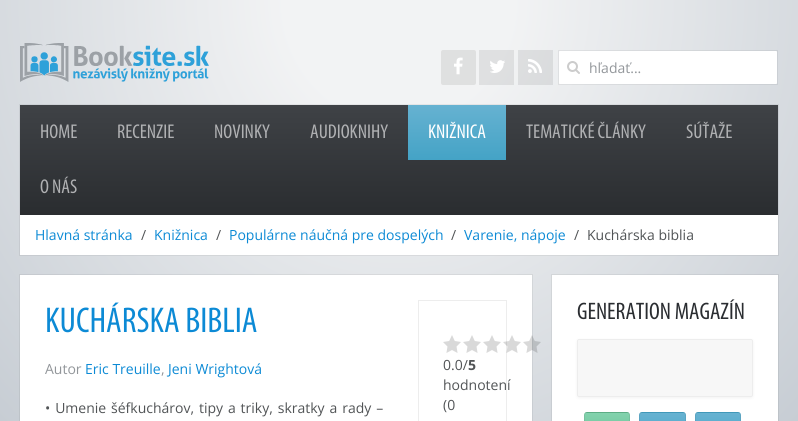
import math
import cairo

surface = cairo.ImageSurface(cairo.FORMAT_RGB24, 798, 421)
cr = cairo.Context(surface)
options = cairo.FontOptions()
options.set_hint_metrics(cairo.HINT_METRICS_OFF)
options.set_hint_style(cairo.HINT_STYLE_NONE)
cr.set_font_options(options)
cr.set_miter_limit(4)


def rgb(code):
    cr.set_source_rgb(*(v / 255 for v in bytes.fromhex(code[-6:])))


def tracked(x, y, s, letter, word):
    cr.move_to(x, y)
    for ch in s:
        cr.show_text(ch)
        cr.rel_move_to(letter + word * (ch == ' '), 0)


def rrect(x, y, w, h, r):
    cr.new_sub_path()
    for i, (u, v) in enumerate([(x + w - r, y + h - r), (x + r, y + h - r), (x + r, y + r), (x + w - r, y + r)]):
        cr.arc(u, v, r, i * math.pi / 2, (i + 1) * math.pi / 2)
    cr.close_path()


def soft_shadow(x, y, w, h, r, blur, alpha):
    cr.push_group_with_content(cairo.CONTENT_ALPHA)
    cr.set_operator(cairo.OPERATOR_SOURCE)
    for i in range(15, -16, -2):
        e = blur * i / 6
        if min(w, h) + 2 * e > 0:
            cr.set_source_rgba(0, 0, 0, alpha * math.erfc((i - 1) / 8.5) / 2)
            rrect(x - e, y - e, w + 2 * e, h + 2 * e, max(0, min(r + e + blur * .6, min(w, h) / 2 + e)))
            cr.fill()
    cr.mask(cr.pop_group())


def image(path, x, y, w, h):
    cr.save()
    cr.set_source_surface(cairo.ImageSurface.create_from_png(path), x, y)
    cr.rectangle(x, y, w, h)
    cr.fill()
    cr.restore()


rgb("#ffffff")
cr.paint()
gradient = cairo.RadialGradient(0, 0, 0, 0, 0, 1)
gradient.set_matrix(cairo.Matrix(1 / 564, 0, 0, 1 / 595, -1 * 399 / 564, -1 * 0 / 595))
gradient.add_color_stop_rgba(0.2, 0.949, 0.953, 0.957, 1)
gradient.add_color_stop_rgba(1, 0.78, 0.804, 0.831, 1)
cr.set_source(gradient)
cr.rectangle(0, 0, 798, 421)
cr.fill()
image("img/1.png", 20, 43, 189, 39)
rgb("#dfe0e0")
rrect(441, 50, 35, 35, 2)
cr.fill()
image("img/2.png", 454, 57, 9, 18)
cr.set_source_rgba(0, 0, 0, 0.08)
cr.rectangle(479, 50, 35, 35)
cr.fill()
image("img/3.png", 490, 60, 15, 13)
cr.rectangle(518, 50, 35, 35)
cr.fill()
image("img/4.png", 528, 59, 14, 14)
rgb("#ffffff")
rrect(559, 51, 218, 33, 1)
cr.fill()
cr.rectangle(558.5, 50.5, 219, 34)
cr.set_source_rgba(0, 0, 0, 0.06)
cr.set_line_width(1)
cr.stroke()
image("img/5.png", 567, 61, 13, 13)
cr.rectangle(19.5, 104.5, 759, 151)
cr.stroke()
rgb("#ffffff")
cr.rectangle(20, 215, 758, 40)
cr.fill()
gradient = cairo.LinearGradient(399, 105, 399, 215)
gradient.add_color_stop_rgba(0, 0.247, 0.259, 0.275, 1)
gradient.add_color_stop_rgba(1, 0.165, 0.176, 0.188, 1)
cr.set_source(gradient)
cr.rectangle(20, 105, 758, 110)
cr.fill()
gradient = cairo.LinearGradient(457, 105, 457, 160)
gradient.add_color_stop_rgba(0, 0.4, 0.698, 0.82, 1)
gradient.add_color_stop_rgba(1, 0.267, 0.639, 0.776, 1)
cr.set_source(gradient)
cr.rectangle(408, 105, 98, 55)
cr.fill()
cr.rectangle(19.5, 274.5, 513, 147)
cr.set_source_rgba(0, 0, 0, 0.06)
cr.stroke()
rgb("#ffffff")
cr.rectangle(20, 275, 512, 146)
cr.fill()
cr.rectangle(418.5, 300.5, 88, 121)
rgb("#ededed")
cr.stroke()
image("img/6.png", 443, 335, 98, 18)
cr.rectangle(551.5, 274.5, 227, 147)
cr.set_source_rgba(0, 0, 0, 0.06)
cr.stroke()
rgb("#ffffff")
cr.rectangle(552, 275, 226, 146)
cr.fill()
rgb("#000000")
soft_shadow(577, 340, 176, 58, 2, 1.5, 0.05)
rgb("#f7f7f7")
rrect(577.5, 339.5, 175, 57, 1.5)
cr.fill_preserve()
rgb("#ededed")
cr.stroke()
cr.save()
rrect(584, 412, 46, 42, 3)
cr.clip()
gradient = cairo.LinearGradient(607, 373, 607, 413)
gradient.add_color_stop_rgba(0, 0.51, 0.824, 0.678, 1)
gradient.add_color_stop_rgba(1, 0.388, 0.725, 0.561, 1)
cr.set_source(gradient)
cr.rectangle(584, 412, 46, 1)
cr.fill()
gradient = cairo.LinearGradient(607, 413, 607, 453)
gradient.add_color_stop_rgba(0, 0.51, 0.824, 0.678, 1)
gradient.add_color_stop_rgba(1, 0.388, 0.725, 0.561, 1)
cr.set_source(gradient)
cr.rectangle(584, 413, 46, 8)
cr.fill()
cr.restore()
rrect(584.5, 412.5, 45, 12, 2.5)
cr.set_source_rgba(0, 0, 0, 0.07)
cr.stroke()
cr.save()
rrect(639, 412, 47, 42, 3)
cr.clip()
gradient = cairo.LinearGradient(663, 373, 663, 413)
gradient.add_color_stop_rgba(0, 0.4, 0.698, 0.82, 1)
gradient.add_color_stop_rgba(1, 0.267, 0.639, 0.776, 1)
cr.set_source(gradient)
cr.rectangle(639, 412, 47, 1)
cr.fill()
gradient = cairo.LinearGradient(663, 413, 663, 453)
gradient.add_color_stop_rgba(0, 0.4, 0.698, 0.82, 1)
gradient.add_color_stop_rgba(1, 0.267, 0.639, 0.776, 1)
cr.set_source(gradient)
cr.rectangle(639, 413, 47, 8)
cr.fill()
cr.restore()
rrect(639.5, 412.5, 46, 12, 2.5)
cr.stroke()
cr.save()
rrect(695, 412, 46, 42, 3)
cr.clip()
gradient = cairo.LinearGradient(718, 373, 718, 413)
gradient.add_color_stop_rgba(0, 0.4, 0.698, 0.82, 1)
gradient.add_color_stop_rgba(1, 0.267, 0.639, 0.776, 1)
cr.set_source(gradient)
cr.rectangle(695, 412, 46, 1)
cr.fill()
gradient = cairo.LinearGradient(718, 413, 718, 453)
gradient.add_color_stop_rgba(0, 0.4, 0.698, 0.82, 1)
gradient.add_color_stop_rgba(1, 0.267, 0.639, 0.776, 1)
cr.set_source(gradient)
cr.rectangle(695, 413, 46, 8)
cr.fill()
cr.restore()
rrect(695.5, 412.5, 45, 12, 2.5)
cr.stroke()
cr.select_font_face("Open Sans")
cr.set_font_size(14)
rgb("#92969a")
cr.move_to(589, 73)
cr.show_text("hľadať...")
cr.select_font_face("Myriad")
cr.set_font_size(20)
rgb("#b0b1b3")
for x, y, s in [
    (40, 138, "HOME"),
    (117, 138, "RECENZIE"),
    (214, 138, "NOVINKY"),
    (310, 138, "AUDIOKNIHY"),
]:
    cr.move_to(x, y)
    cr.show_text(s)
rgb("#ffffff")
cr.move_to(428, 138)
cr.show_text("KNIŽNICA")
rgb("#b0b1b3")
for x, y, s in [
    (526, 138, "TEMATICKÉ ČLÁNKY"),
    (686, 138, "SÚŤAŽE"),
    (40, 193, "O NÁS"),
]:
    cr.move_to(x, y)
    cr.show_text(s)
cr.select_font_face("Open Sans")
cr.set_font_size(14)
rgb("#0c8ad5")
cr.move_to(35, 240)
cr.show_text("Hlavná stránka")
rgb("#515456")
cr.move_to(141, 240)
cr.show_text("/")
rgb("#0c8ad5")
cr.move_to(154, 240)
cr.show_text("Knižnica")
rgb("#515456")
cr.move_to(216, 240)
cr.show_text("/")
rgb("#0c8ad5")
cr.move_to(229, 240)
cr.show_text("Populárne náučná pre dospelých")
rgb("#515456")
cr.move_to(451, 240)
cr.show_text("/")
rgb("#0c8ad5")
cr.move_to(464, 240)
cr.show_text("Varenie, nápoje")
rgb("#515456")
cr.move_to(574, 240)
cr.show_text("/")
cr.move_to(587, 240)
cr.show_text("Kuchárska biblia")
cr.select_font_face("Myriad")
cr.set_font_size(36)
rgb("#0c8ad5")
cr.move_to(45, 332)
cr.show_text("KUCHÁRSKA BIBLIA")
cr.select_font_face("Open Sans")
cr.set_font_size(14)
rgb("#92969a")
cr.move_to(45, 374)
cr.show_text("Autor")
rgb("#0c8ad5")
cr.move_to(85, 374)
cr.show_text("Eric Treuille")
rgb("#92969a")
cr.move_to(161, 374)
cr.show_text(",")
rgb("#0c8ad5")
cr.move_to(168, 374)
cr.show_text("Jeni Wrightová")
rgb("#515456")
tracked(45, 413, "• Umenie šéfkuchárov, tipy a triky, skratky a rady –", 0, 1.25)
cr.move_to(443, 370)
cr.show_text("0.0/")
cr.select_font_face("Open Sans", cairo.FONT_SLANT_NORMAL, cairo.FONT_WEIGHT_BOLD)
cr.move_to(468, 370)
cr.show_text("5")
cr.select_font_face("Open Sans")
cr.move_to(443, 390)
cr.show_text("hodnotení")
cr.move_to(443, 410)
cr.show_text("(0")
cr.select_font_face("Myriad")
cr.set_font_size(24)
rgb("#2a2d31")
cr.move_to(577, 319)
cr.show_text("GENERATION MAGAZÍN")
surface.write_to_png("page.png")
